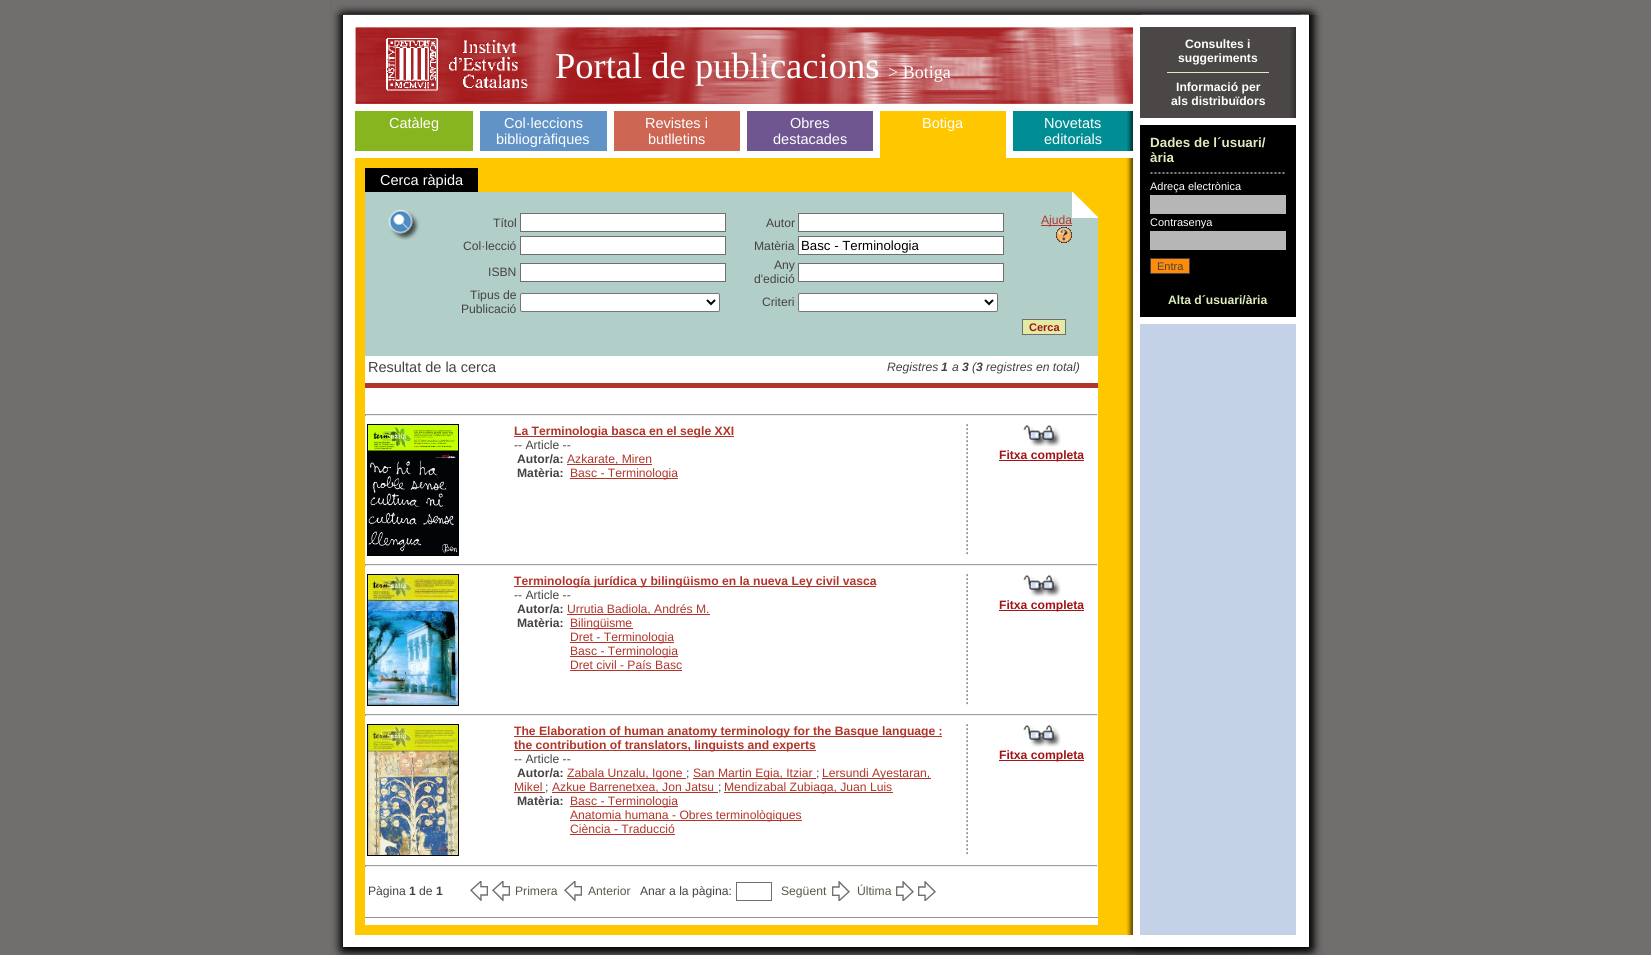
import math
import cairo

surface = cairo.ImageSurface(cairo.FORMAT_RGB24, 1651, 955)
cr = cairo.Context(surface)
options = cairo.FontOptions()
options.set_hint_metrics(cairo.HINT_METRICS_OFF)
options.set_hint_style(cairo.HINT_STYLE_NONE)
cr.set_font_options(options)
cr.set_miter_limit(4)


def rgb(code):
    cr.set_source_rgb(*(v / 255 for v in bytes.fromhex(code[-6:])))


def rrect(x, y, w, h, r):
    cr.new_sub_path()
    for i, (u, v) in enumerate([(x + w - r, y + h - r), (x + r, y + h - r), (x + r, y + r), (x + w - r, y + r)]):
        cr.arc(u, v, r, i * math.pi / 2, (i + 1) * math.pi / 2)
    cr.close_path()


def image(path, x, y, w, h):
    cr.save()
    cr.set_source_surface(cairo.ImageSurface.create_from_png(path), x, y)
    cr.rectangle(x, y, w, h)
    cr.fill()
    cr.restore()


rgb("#716f6e")
cr.paint()
image("img/1.png", 328, 0, 995, 955)
image("img/2.png", 332, 0, 990, 15)
image("img/3.png", 333, 947, 988, 8)
image("img/4.png", 355, 27, 778, 77)
for x, y, w, h, color in [
    (355, 111, 118, 40, "#87b51f"),
    (480, 111, 127, 40, "#6193c6"),
    (614, 111, 126, 40, "#ce6654"),
    (747, 111, 126, 40, "#6f5691"),
    (880, 111, 126, 47, "#ffc700"),
    (1013, 111, 114, 40, "#008e94"),
]:
    rgb(color)
    cr.rectangle(x, y, w, h)
    cr.fill()
image("img/5.png", 1127, 111, 6, 40)
rgb("#ffc700")
cr.rectangle(355, 158, 771, 777)
cr.fill()
image("img/6.png", 1126, 158, 7, 777)
for x, y, w, h, color in [
    (365, 168, 113, 24, "#000000"),
    (365, 356, 733, 569, "#ffffff"),
    (365, 192, 733, 164, "#b2cec9"),
]:
    rgb(color)
    cr.rectangle(x, y, w, h)
    cr.fill()
image("img/7.png", 1072, 192, 26, 26)
image("img/8.png", 388, 209, 32, 31)
rgb("#ffffff")
cr.rectangle(520.5, 213.5, 205, 18)
cr.fill_preserve()
rgb("#716f6e")
cr.set_line_width(1)
cr.stroke()
rgb("#ffffff")
cr.rectangle(798.5, 213.5, 205, 18)
cr.fill_preserve()
rgb("#716f6e")
cr.stroke()
rgb("#ffffff")
cr.rectangle(520.5, 236.5, 205, 18)
cr.fill_preserve()
rgb("#716f6e")
cr.stroke()
rgb("#ffffff")
cr.rectangle(798.5, 236.5, 205, 18)
cr.fill_preserve()
rgb("#716f6e")
cr.stroke()
rgb("#ffffff")
cr.rectangle(520.5, 263.5, 205, 18)
cr.fill_preserve()
rgb("#716f6e")
cr.stroke()
rgb("#ffffff")
cr.rectangle(798.5, 263.5, 205, 18)
cr.fill_preserve()
rgb("#716f6e")
cr.stroke()
rgb("#ffffff")
rrect(520.5, 293.5, 199, 18, 1.5)
cr.fill_preserve()
rgb("#767676")
cr.stroke()
cr.new_path()
cr.move_to(707, 300)
cr.line_to(711, 304)
cr.line_to(715, 300)
rgb("#000000")
cr.set_line_width(2)
cr.stroke()
rgb("#ffffff")
rrect(798.5, 293.5, 199, 18, 1.5)
cr.fill_preserve()
rgb("#767676")
cr.set_line_width(1)
cr.stroke()
cr.new_path()
cr.move_to(985, 300)
cr.line_to(989, 304)
cr.line_to(993, 300)
rgb("#000000")
cr.set_line_width(2)
cr.stroke()
rgb("#b33529")
cr.rectangle(1041, 225, 31, 1)
cr.fill()
image("img/9.png", 1056, 227, 16, 16)
rgb("#e2eaa4")
cr.rectangle(1022.5, 319.5, 43, 15)
cr.fill_preserve()
rgb("#716f6e")
cr.set_line_width(1)
cr.stroke()
for x, y, w, h, color in [
    (365, 383, 733, 5, "#b33529"),
    (365, 414, 733, 1, "#9f9f9f"),
    (1097, 414, 1, 2, "#eeeeee"),
    (365, 415, 733, 1, "#eeeeee"),
    (365, 414, 1, 2, "#9f9f9f"),
]:
    rgb(color)
    cr.rectangle(x, y, w, h)
    cr.fill()
cr.rectangle(367.5, 424.5, 91, 131)
rgb("#000000")
cr.stroke()
image("img/10.png", 368, 425, 90, 130)
for x, y, w, h, color in [
    (514, 436, 220, 1, "#b33529"),
    (567, 464, 85, 1, "#b33529"),
    (570, 478, 108, 1, "#b33529"),
]:
    rgb(color)
    cr.rectangle(x, y, w, h)
    cr.fill()
image("img/11.png", 966, 424, 2, 131)
image("img/12.png", 1023, 425, 38, 22)
for x, y, w, h, color in [
    (999, 460, 85, 1, "#a21416"),
    (365, 564, 733, 1, "#9f9f9f"),
    (1097, 564, 1, 2, "#eeeeee"),
    (365, 565, 733, 1, "#eeeeee"),
    (365, 564, 1, 2, "#9f9f9f"),
]:
    rgb(color)
    cr.rectangle(x, y, w, h)
    cr.fill()
cr.rectangle(367.5, 574.5, 91, 131)
rgb("#000000")
cr.stroke()
image("img/13.png", 368, 575, 90, 130)
for x, y, w, h, color in [
    (514, 586, 362, 1, "#b33529"),
    (567, 614, 143, 1, "#b33529"),
    (570, 628, 63, 1, "#b33529"),
    (570, 642, 104, 1, "#b33529"),
    (570, 656, 108, 1, "#b33529"),
    (570, 670, 112, 1, "#b33529"),
]:
    rgb(color)
    cr.rectangle(x, y, w, h)
    cr.fill()
image("img/11.png", 966, 574, 2, 131)
image("img/12.png", 1023, 575, 38, 22)
for x, y, w, h, color in [
    (999, 610, 85, 1, "#a21416"),
    (365, 714, 733, 1, "#9f9f9f"),
    (1097, 714, 1, 2, "#eeeeee"),
    (365, 715, 733, 1, "#eeeeee"),
    (365, 714, 1, 2, "#9f9f9f"),
]:
    rgb(color)
    cr.rectangle(x, y, w, h)
    cr.fill()
cr.rectangle(367.5, 724.5, 91, 131)
rgb("#000000")
cr.stroke()
image("img/14.png", 368, 725, 90, 130)
for x, y, w, h, color in [
    (514, 736, 428, 1, "#b33529"),
    (514, 750, 302, 1, "#b33529"),
    (567, 778, 119, 1, "#b33529"),
    (693, 778, 123, 1, "#b33529"),
    (822, 778, 109, 1, "#b33529"),
    (514, 792, 31, 1, "#b33529"),
    (552, 792, 166, 1, "#b33529"),
    (724, 792, 169, 1, "#b33529"),
    (570, 806, 108, 1, "#b33529"),
    (570, 820, 232, 1, "#b33529"),
    (570, 834, 105, 1, "#b33529"),
]:
    rgb(color)
    cr.rectangle(x, y, w, h)
    cr.fill()
image("img/11.png", 966, 724, 2, 131)
image("img/12.png", 1023, 725, 38, 22)
for x, y, w, h, color in [
    (999, 760, 85, 1, "#a21416"),
    (365, 865, 733, 1, "#9f9f9f"),
    (1097, 865, 1, 2, "#eeeeee"),
    (365, 866, 733, 1, "#eeeeee"),
    (365, 865, 1, 2, "#9f9f9f"),
]:
    rgb(color)
    cr.rectangle(x, y, w, h)
    cr.fill()
image("img/15.png", 470, 881, 40, 20)
image("img/16.png", 564, 881, 18, 20)
cr.rectangle(736.5, 882.5, 35, 18)
rgb("#716f6e")
cr.stroke()
image("img/17.png", 832, 881, 18, 20)
image("img/18.png", 896, 881, 40, 20)
for x, y, w, h, color in [
    (365, 917, 733, 1, "#949392"),
    (1140, 324, 156, 611, "#c3d2e7"),
    (1140, 27, 150, 91, "#4a4746"),
]:
    rgb(color)
    cr.rectangle(x, y, w, h)
    cr.fill()
image("img/19.png", 1290, 27, 6, 91)
rgb("#deebbd")
cr.rectangle(1167, 72, 102, 1)
cr.fill()
rgb("#000000")
cr.rectangle(1140, 125, 156, 192)
cr.fill()
image("img/20.png", 1150, 172, 136, 2)
rgb("#b7b6b6")
cr.rectangle(1150, 195, 136, 19)
cr.fill()
cr.rectangle(1150, 231, 136, 19)
cr.fill()
rgb("#ff8c09")
cr.rectangle(1150.5, 258.5, 39, 15)
cr.fill_preserve()
rgb("#464241")
cr.stroke()
cr.select_font_face("Liberation Serif")
cr.set_font_size(36.5)
rgb("#ffffff")
cr.move_to(555, 78)
cr.show_text("Portal de publicacions")
cr.set_font_size(18)
cr.move_to(888, 78)
cr.show_text("> Botiga")
cr.select_font_face("Liberation Sans")
cr.set_font_size(14.5)
for x, y, s in [
    (389, 128, "Catàleg"),
    (504, 128, "Col·leccions"),
    (496, 144, "bibliogràfiques"),
    (645, 128, "Revistes i"),
    (648, 144, "butlletins"),
    (790, 128, "Obres"),
    (773, 144, "destacades"),
    (922, 128, "Botiga"),
    (1044, 128, "Novetats"),
    (1044, 144, "editorials"),
    (380, 185, "Cerca ràpida"),
]:
    cr.move_to(x, y)
    cr.show_text(s)
cr.set_font_size(12.15)
rgb("#464241")
for x, y, s in [
    (493, 227, "Títol"),
    (766, 227, "Autor"),
    (463, 250, "Col·lecció"),
    (754, 250, "Matèria"),
]:
    cr.move_to(x, y)
    cr.show_text(s)
cr.set_font_size(13.25)
rgb("#000000")
cr.move_to(801, 250)
cr.show_text("Basc - Terminologia")
cr.set_font_size(12.15)
rgb("#464241")
for x, y, s in [
    (488, 276, "ISBN"),
    (774, 269, "Any"),
    (754, 283, "d'edició"),
    (470, 299, "Tipus de"),
    (461, 313, "Publicació"),
    (762, 306, "Criteri"),
]:
    cr.move_to(x, y)
    cr.show_text(s)
rgb("#b33529")
cr.move_to(1041, 224)
cr.show_text("Ajuda")
cr.select_font_face("Liberation Sans", cairo.FONT_SLANT_NORMAL, cairo.FONT_WEIGHT_BOLD)
cr.set_font_size(11)
rgb("#a21416")
cr.move_to(1029, 331)
cr.show_text("Cerca")
cr.select_font_face("Liberation Sans")
cr.set_font_size(14.5)
rgb("#464241")
cr.move_to(368, 372)
cr.show_text("Resultat de la cerca")
cr.select_font_face("Liberation Sans", cairo.FONT_SLANT_ITALIC)
cr.set_font_size(12.15)
cr.move_to(887, 371)
cr.show_text("Registres")
cr.select_font_face("Liberation Sans", cairo.FONT_SLANT_ITALIC, cairo.FONT_WEIGHT_BOLD)
cr.move_to(941, 371)
cr.show_text("1")
cr.select_font_face("Liberation Sans", cairo.FONT_SLANT_ITALIC)
cr.move_to(952, 371)
cr.show_text("a")
cr.select_font_face("Liberation Sans", cairo.FONT_SLANT_ITALIC, cairo.FONT_WEIGHT_BOLD)
cr.move_to(962, 371)
cr.show_text("3")
cr.select_font_face("Liberation Sans", cairo.FONT_SLANT_ITALIC)
cr.move_to(972, 371)
cr.show_text("(")
cr.select_font_face("Liberation Sans", cairo.FONT_SLANT_ITALIC, cairo.FONT_WEIGHT_BOLD)
cr.move_to(976, 371)
cr.show_text("3")
cr.select_font_face("Liberation Sans", cairo.FONT_SLANT_ITALIC)
cr.move_to(986, 371)
cr.show_text("registres en total)")
cr.select_font_face("Liberation Sans", cairo.FONT_SLANT_NORMAL, cairo.FONT_WEIGHT_BOLD)
rgb("#b33529")
cr.move_to(514, 435)
cr.show_text("La Terminologia basca en el segle XXI")
cr.select_font_face("Liberation Sans")
rgb("#464241")
cr.move_to(514, 449)
cr.show_text("-- Article --")
cr.select_font_face("Liberation Sans", cairo.FONT_SLANT_NORMAL, cairo.FONT_WEIGHT_BOLD)
cr.move_to(517, 463)
cr.show_text("Autor/a:")
cr.select_font_face("Liberation Sans")
rgb("#b33529")
cr.move_to(567, 463)
cr.show_text("Azkarate, Miren")
cr.select_font_face("Liberation Sans", cairo.FONT_SLANT_NORMAL, cairo.FONT_WEIGHT_BOLD)
rgb("#464241")
cr.move_to(517, 477)
cr.show_text("Matèria:")
cr.select_font_face("Liberation Sans")
rgb("#b33529")
cr.move_to(570, 477)
cr.show_text("Basc - Terminologia")
cr.select_font_face("Liberation Sans", cairo.FONT_SLANT_NORMAL, cairo.FONT_WEIGHT_BOLD)
rgb("#a21416")
cr.move_to(999, 459)
cr.show_text("Fitxa completa")
rgb("#b33529")
cr.move_to(514, 585)
cr.show_text("Terminología jurídica y bilingüismo en la nueva Ley civil vasca")
cr.select_font_face("Liberation Sans")
rgb("#464241")
cr.move_to(514, 599)
cr.show_text("-- Article --")
cr.select_font_face("Liberation Sans", cairo.FONT_SLANT_NORMAL, cairo.FONT_WEIGHT_BOLD)
cr.move_to(517, 613)
cr.show_text("Autor/a:")
cr.select_font_face("Liberation Sans")
rgb("#b33529")
cr.move_to(567, 613)
cr.show_text("Urrutia Badiola, Andrés M.")
cr.select_font_face("Liberation Sans", cairo.FONT_SLANT_NORMAL, cairo.FONT_WEIGHT_BOLD)
rgb("#464241")
cr.move_to(517, 627)
cr.show_text("Matèria:")
cr.select_font_face("Liberation Sans")
rgb("#b33529")
for x, y, s in [
    (570, 627, "Bilingüisme"),
    (570, 641, "Dret - Terminologia"),
    (570, 655, "Basc - Terminologia"),
    (570, 669, "Dret civil - País Basc"),
]:
    cr.move_to(x, y)
    cr.show_text(s)
cr.select_font_face("Liberation Sans", cairo.FONT_SLANT_NORMAL, cairo.FONT_WEIGHT_BOLD)
rgb("#a21416")
cr.move_to(999, 609)
cr.show_text("Fitxa completa")
rgb("#b33529")
cr.move_to(514, 735)
cr.show_text("The Elaboration of human anatomy terminology for the Basque language :")
cr.move_to(514, 749)
cr.show_text("the contribution of translators, linguists and experts")
cr.select_font_face("Liberation Sans")
rgb("#464241")
cr.move_to(514, 763)
cr.show_text("-- Article --")
cr.select_font_face("Liberation Sans", cairo.FONT_SLANT_NORMAL, cairo.FONT_WEIGHT_BOLD)
cr.move_to(517, 777)
cr.show_text("Autor/a:")
cr.select_font_face("Liberation Sans")
rgb("#b33529")
cr.move_to(567, 777)
cr.show_text("Zabala Unzalu, Igone")
rgb("#464241")
cr.move_to(686, 777)
cr.show_text(";")
rgb("#b33529")
cr.move_to(693, 777)
cr.show_text("San Martin Egia, Itziar")
rgb("#464241")
cr.move_to(816, 777)
cr.show_text(";")
rgb("#b33529")
cr.move_to(822, 777)
cr.show_text("Lersundi Ayestaran,")
cr.move_to(514, 791)
cr.show_text("Mikel")
rgb("#464241")
cr.move_to(545, 791)
cr.show_text(";")
rgb("#b33529")
cr.move_to(552, 791)
cr.show_text("Azkue Barrenetxea, Jon Jatsu")
rgb("#464241")
cr.move_to(718, 791)
cr.show_text(";")
rgb("#b33529")
cr.move_to(724, 791)
cr.show_text("Mendizabal Zubiaga, Juan Luis")
cr.select_font_face("Liberation Sans", cairo.FONT_SLANT_NORMAL, cairo.FONT_WEIGHT_BOLD)
rgb("#464241")
cr.move_to(517, 805)
cr.show_text("Matèria:")
cr.select_font_face("Liberation Sans")
rgb("#b33529")
for x, y, s in [
    (570, 805, "Basc - Terminologia"),
    (570, 819, "Anatomia humana - Obres terminològiques"),
    (570, 833, "Ciència - Traducció"),
]:
    cr.move_to(x, y)
    cr.show_text(s)
cr.select_font_face("Liberation Sans", cairo.FONT_SLANT_NORMAL, cairo.FONT_WEIGHT_BOLD)
rgb("#a21416")
cr.move_to(999, 759)
cr.show_text("Fitxa completa")
cr.select_font_face("Liberation Sans")
rgb("#464241")
cr.move_to(368, 895)
cr.show_text("Pàgina")
cr.select_font_face("Liberation Sans", cairo.FONT_SLANT_NORMAL, cairo.FONT_WEIGHT_BOLD)
cr.move_to(409, 895)
cr.show_text("1")
cr.select_font_face("Liberation Sans")
cr.move_to(419, 895)
cr.show_text("de")
cr.select_font_face("Liberation Sans", cairo.FONT_SLANT_NORMAL, cairo.FONT_WEIGHT_BOLD)
cr.move_to(436, 895)
cr.show_text("1")
cr.select_font_face("Liberation Sans")
rgb("#5a5747")
cr.move_to(515, 895)
cr.show_text("Primera")
cr.move_to(588, 895)
cr.show_text("Anterior")
rgb("#464241")
cr.move_to(640, 895)
cr.show_text("Anar a la pàgina:")
rgb("#5a5747")
cr.move_to(781, 895)
cr.show_text("Següent")
cr.move_to(857, 895)
cr.show_text("Última")
cr.select_font_face("Liberation Sans", cairo.FONT_SLANT_NORMAL, cairo.FONT_WEIGHT_BOLD)
rgb("#ffffff")
for x, y, s in [
    (1185, 48, "Consultes i"),
    (1178, 62, "suggeriments"),
    (1176, 91, "Informació per"),
    (1171, 105, "als distribuïdors"),
]:
    cr.move_to(x, y)
    cr.show_text(s)
cr.set_font_size(13.4)
rgb("#deebbd")
cr.move_to(1150, 147)
cr.show_text("Dades de l´usuari/")
cr.move_to(1150, 162)
cr.show_text("ària")
cr.select_font_face("Liberation Sans")
cr.set_font_size(11)
rgb("#ffffff")
cr.move_to(1150, 190)
cr.show_text("Adreça electrònica")
cr.move_to(1150, 226)
cr.show_text("Contrasenya")
rgb("#464241")
cr.move_to(1157, 270)
cr.show_text("Entra")
cr.select_font_face("Liberation Sans", cairo.FONT_SLANT_NORMAL, cairo.FONT_WEIGHT_BOLD)
cr.set_font_size(12.15)
rgb("#deebbd")
cr.move_to(1168, 304)
cr.show_text("Alta d´usuari/ària")
surface.write_to_png("page.png")
